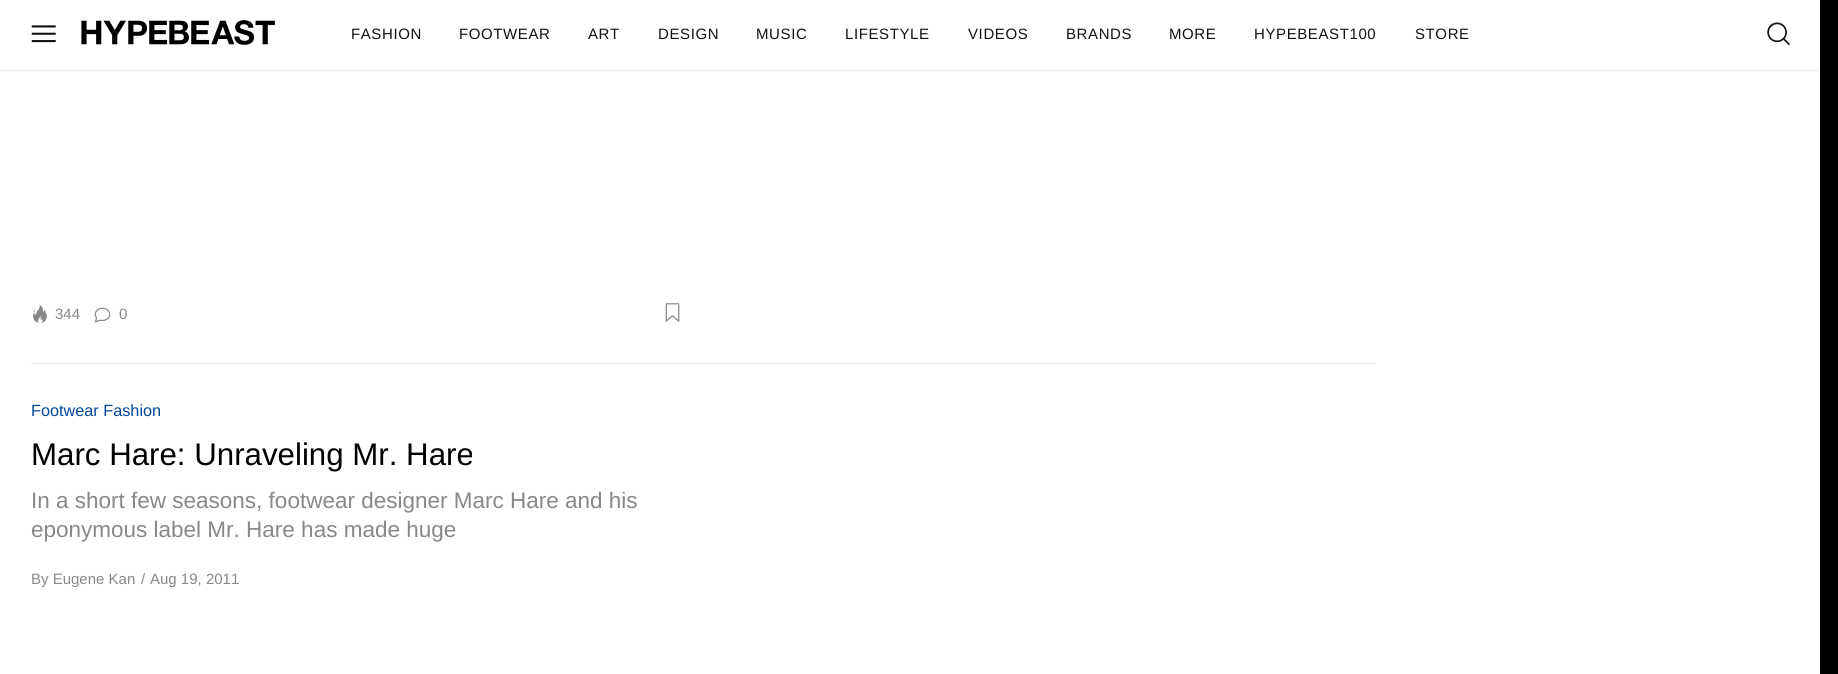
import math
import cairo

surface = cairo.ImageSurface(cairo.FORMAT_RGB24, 1838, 674)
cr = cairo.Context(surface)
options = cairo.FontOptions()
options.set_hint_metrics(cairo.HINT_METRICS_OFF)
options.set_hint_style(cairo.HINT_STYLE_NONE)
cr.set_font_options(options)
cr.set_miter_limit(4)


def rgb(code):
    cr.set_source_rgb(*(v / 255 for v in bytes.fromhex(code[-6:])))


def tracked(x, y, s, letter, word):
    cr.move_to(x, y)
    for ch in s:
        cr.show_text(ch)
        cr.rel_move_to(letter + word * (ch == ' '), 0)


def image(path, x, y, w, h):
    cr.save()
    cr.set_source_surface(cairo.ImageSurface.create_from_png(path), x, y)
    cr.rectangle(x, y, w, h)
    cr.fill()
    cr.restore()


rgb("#000000")
cr.paint()
for x, y, w, h, color in [
    (0, 71, 1820, 603, "#ffffff"),
    (0, 0, 1820, 70, "#ffffff"),
    (0, 70, 1820, 1, "#eeeeee"),
]:
    rgb(color)
    cr.rectangle(x, y, w, h)
    cr.fill()
image("img/1.png", 31, 25, 25, 18)
image("img/2.png", 1767, 22, 23, 24)
image("img/3.png", 81, 20, 194, 25)
image("img/4.png", 33, 305, 14, 18)
image("img/5.png", 94, 307, 17, 16)
image("img/6.png", 665, 303, 15, 19)
cr.rectangle(31, 363, 1345, 1)
cr.fill()
cr.select_font_face("Liberation Sans")
cr.set_font_size(15)
rgb("#111111")
for x, y, s in [
    (351, 39, "FASHION"),
    (459, 39, "FOOTWEAR"),
    (588, 39, "ART"),
    (658, 39, "DESIGN"),
    (756, 39, "MUSIC"),
    (845, 39, "LIFESTYLE"),
    (968, 39, "VIDEOS"),
    (1066, 39, "BRANDS"),
    (1169, 39, "MORE"),
    (1254, 39, "HYPEBEAST100"),
    (1415, 39, "STORE"),
]:
    tracked(x, y, s, 0.6, 0)
rgb("#888888")
cr.move_to(55, 319)
cr.show_text("344")
cr.move_to(119, 319)
cr.show_text("0")
cr.set_font_size(16.25)
rgb("#00469b")
cr.move_to(31, 416)
cr.show_text("Footwear Fashion")
cr.set_font_size(31.25)
rgb("#000000")
cr.move_to(31, 465)
cr.show_text("Marc Hare: Unraveling Mr. Hare")
cr.set_font_size(22.5)
rgb("#888888")
cr.move_to(31, 508)
cr.show_text("In a short few seasons, footwear designer Marc Hare and his")
cr.move_to(31, 537)
cr.show_text("eponymous label Mr. Hare has made huge")
cr.set_font_size(15)
for x, y, s in [
    (31, 584, "By Eugene Kan"),
    (141, 584, "/"),
    (150, 584, "Aug 19, 2011"),
]:
    cr.move_to(x, y)
    cr.show_text(s)
surface.write_to_png("page.png")
